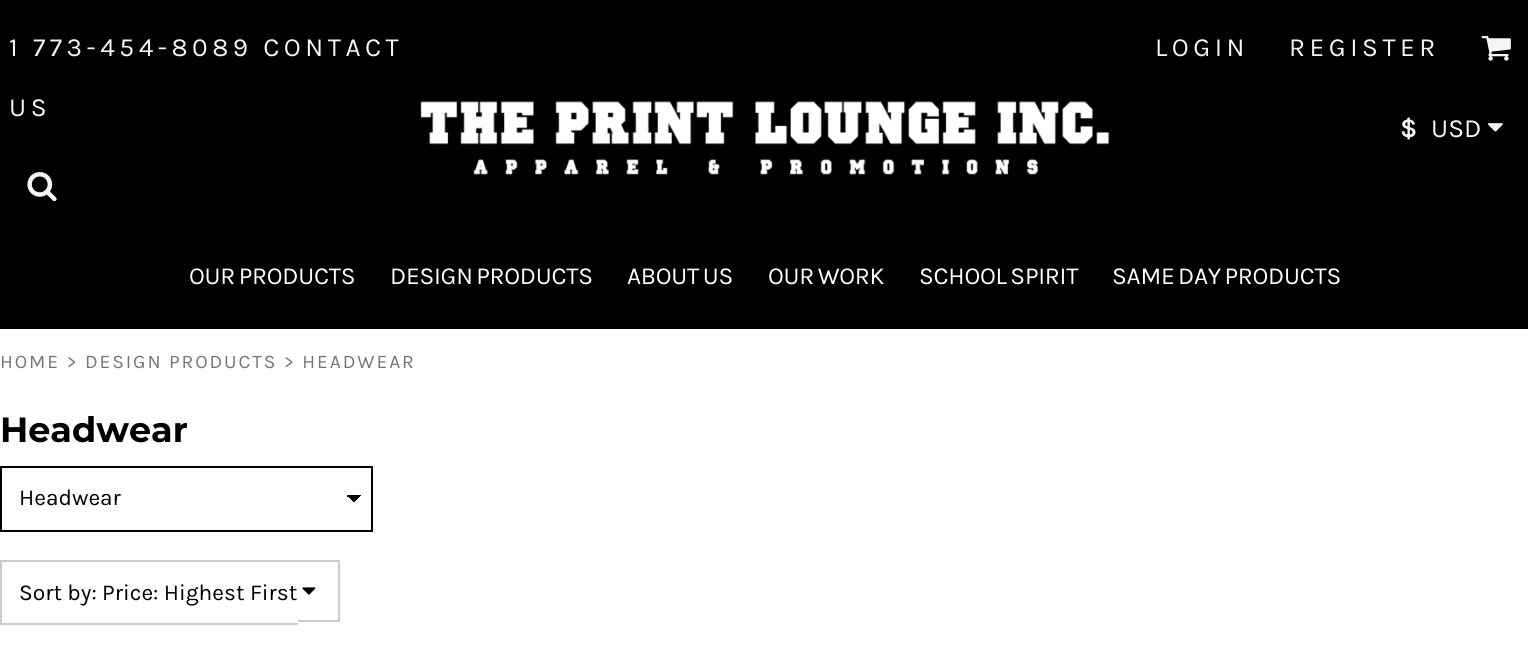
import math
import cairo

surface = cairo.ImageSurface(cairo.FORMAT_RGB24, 1528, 655)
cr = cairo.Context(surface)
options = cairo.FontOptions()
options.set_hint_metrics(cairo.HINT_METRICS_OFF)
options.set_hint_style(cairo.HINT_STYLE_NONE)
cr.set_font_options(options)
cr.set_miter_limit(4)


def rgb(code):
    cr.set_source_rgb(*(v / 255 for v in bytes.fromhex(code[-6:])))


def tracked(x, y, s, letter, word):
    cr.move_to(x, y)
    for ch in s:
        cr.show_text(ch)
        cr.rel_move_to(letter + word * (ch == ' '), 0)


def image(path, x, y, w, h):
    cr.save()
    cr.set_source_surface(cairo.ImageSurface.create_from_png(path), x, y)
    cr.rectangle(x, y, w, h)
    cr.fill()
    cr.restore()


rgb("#ffffff")
cr.paint()
rgb("#000000")
cr.rectangle(0, 0, 1528, 329)
cr.fill()
image("img/1.png", 27, 172, 30, 30)
image("img/2.png", 420, 101, 690, 74)
image("img/3.png", 1481, 36, 30, 25)
image("img/4.png", 1488, 123, 15, 9)
gradient = cairo.LinearGradient(354, 494, 362, 503)
gradient.add_color_stop_rgba(0.5, 0, 0, 0, 1)
gradient.add_color_stop_rgba(0.5, 1, 1, 1, 1)
cr.set_source(gradient)
cr.rectangle(354, 495, 7, 9)
cr.fill()
gradient = cairo.LinearGradient(345, 503, 354, 494)
gradient.add_color_stop_rgba(0.5, 1, 1, 1, 1)
gradient.add_color_stop_rgba(0.5, 0, 0, 0, 1)
cr.set_source(gradient)
cr.rectangle(347, 495, 7, 7)
cr.fill()
cr.rectangle(1, 467, 371, 64)
rgb("#000000")
cr.stroke()
for x, y, w, h, color in [
    (0, 560, 340, 2, "#cccccc"),
    (0, 623, 298, 2, "#cccccc"),
    (0, 560, 2, 65, "#cccccc"),
    (338, 560, 2, 61, "#cccccc"),
    (298, 620, 42, 2, "#cccccc"),
]:
    rgb(color)
    cr.rectangle(x, y, w, h)
    cr.fill()
image("img/5.png", 302, 587, 14, 8)
cr.select_font_face("Karla")
cr.set_font_size(26.25)
rgb("#f5f5f5")
for x, y, s in [
    (9, 56, "1 773-454-8089 CONTACT"),
    (9, 116, "US"),
    (1155, 56, "LOGIN"),
    (1289, 56, "REGISTER"),
]:
    tracked(x, y, s, 4.5, 0)
cr.select_font_face("Karla", cairo.FONT_SLANT_NORMAL, cairo.FONT_WEIGHT_BOLD)
cr.move_to(1400, 137)
cr.show_text("$")
cr.select_font_face("Karla")
cr.move_to(1431, 137)
cr.show_text("USD")
cr.set_font_size(24.5)
rgb("#ffffff")
for x, y, s in [
    (189, 284, "OUR PRODUCTS"),
    (390, 284, "DESIGN PRODUCTS"),
    (627, 284, "ABOUT US"),
    (768, 284, "OUR WORK"),
    (919, 284, "SCHOOL SPIRIT"),
    (1112, 284, "SAME DAY PRODUCTS"),
]:
    tracked(x, y, s, -0.25, -2)
cr.set_font_size(19.25)
rgb("#757575")
tracked(0, 368, "HOME > DESIGN PRODUCTS > HEADWEAR", 1.9, 0)
cr.select_font_face("Montserrat", cairo.FONT_SLANT_NORMAL, cairo.FONT_WEIGHT_BOLD)
cr.set_font_size(35)
rgb("#000000")
cr.move_to(0, 442)
cr.show_text("Headwear")
cr.select_font_face("Karla")
cr.set_font_size(22.75)
cr.move_to(19, 505)
cr.show_text("Headwear")
cr.move_to(19, 600)
cr.show_text("Sort by: Price: Highest First")
surface.write_to_png("page.png")
